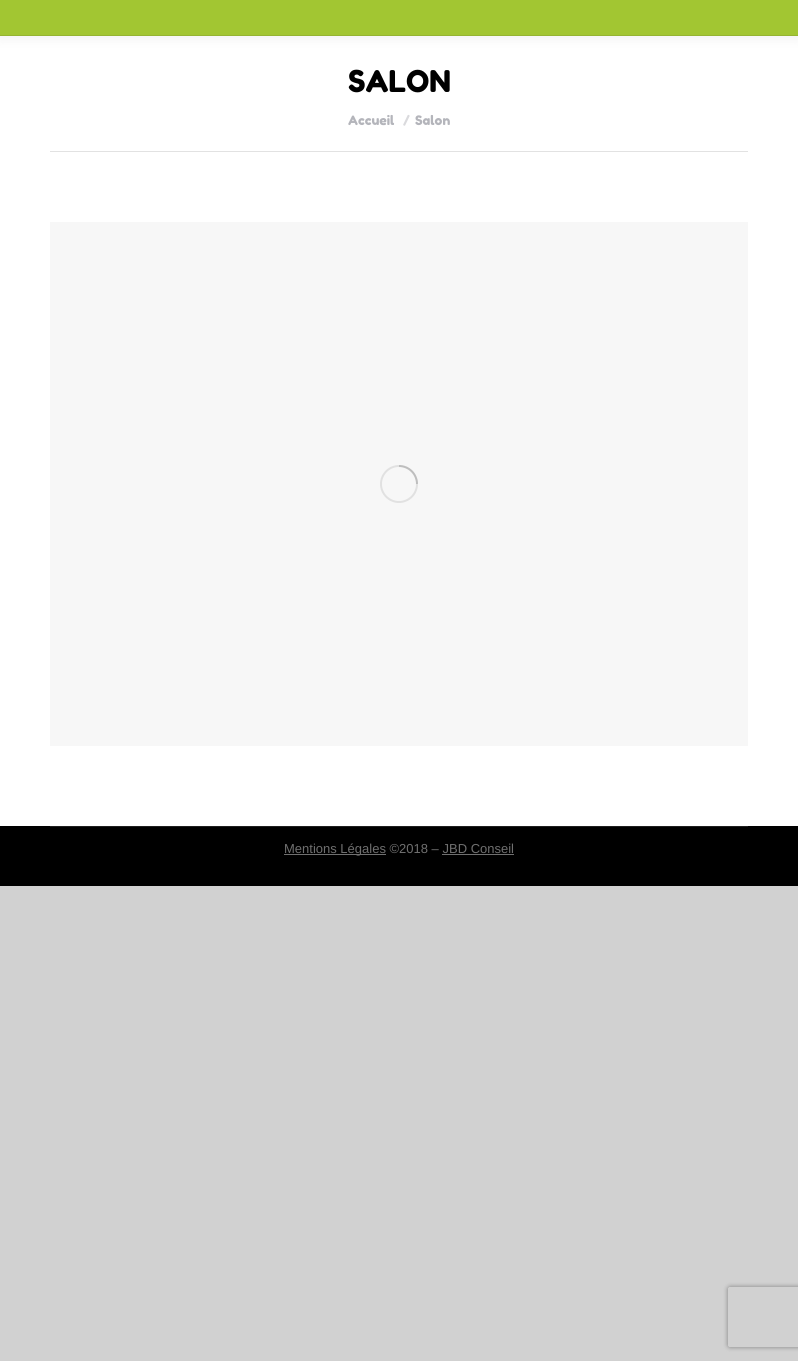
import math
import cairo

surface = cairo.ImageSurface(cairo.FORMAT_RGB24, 798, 1361)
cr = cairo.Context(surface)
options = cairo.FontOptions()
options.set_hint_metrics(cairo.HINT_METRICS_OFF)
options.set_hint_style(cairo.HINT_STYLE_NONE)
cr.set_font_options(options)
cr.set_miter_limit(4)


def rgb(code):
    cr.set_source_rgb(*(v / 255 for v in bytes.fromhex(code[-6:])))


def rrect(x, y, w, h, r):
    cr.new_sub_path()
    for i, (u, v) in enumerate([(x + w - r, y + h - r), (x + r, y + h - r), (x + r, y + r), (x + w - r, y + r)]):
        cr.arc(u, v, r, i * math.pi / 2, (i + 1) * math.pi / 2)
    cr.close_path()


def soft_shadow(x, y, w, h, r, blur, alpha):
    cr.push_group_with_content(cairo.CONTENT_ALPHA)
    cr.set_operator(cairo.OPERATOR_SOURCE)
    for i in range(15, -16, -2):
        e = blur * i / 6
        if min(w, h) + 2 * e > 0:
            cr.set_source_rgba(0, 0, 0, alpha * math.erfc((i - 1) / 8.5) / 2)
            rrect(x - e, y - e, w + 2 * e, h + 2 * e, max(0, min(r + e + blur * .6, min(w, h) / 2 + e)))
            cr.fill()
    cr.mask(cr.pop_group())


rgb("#d1d1d1")
cr.paint()
rgb("#ffffff")
cr.rectangle(0, 36, 798, 790)
cr.fill()
rgb("#000000")
soft_shadow(-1, -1, 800, 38, 0, 7.5, 0.07)
for x, y, w, h, color in [
    (0, 0, 798, 35, "#a2c632"),
    (0, 35, 798, 1, "#95b432"),
    (50, 151, 698, 1, "#e2e2e2"),
    (50, 222, 698, 524, "#f7f7f7"),
]:
    rgb(color)
    cr.rectangle(x, y, w, h)
    cr.fill()
cr.arc(399, 484, 18, 0, 2 * math.pi)
rgb("#e1e1e1")
cr.stroke()
cr.new_path()
cr.move_to(417, 484)
cr.curve_to(417, 474, 409, 466, 399, 466)
cr.set_source_rgba(0.337, 0.337, 0.337, 0.25)
cr.stroke()
for x, y, w, h, color in [
    (0, 826, 798, 60, "#000000"),
    (50, 826, 698, 1, "#1f1f1f"),
    (284, 854, 102, 1, "#707070"),
    (442, 854, 72, 1, "#707070"),
]:
    rgb(color)
    cr.rectangle(x, y, w, h)
    cr.fill()
cr.save()
cr.set_fill_rule(cairo.FILL_RULE_EVEN_ODD)
cr.new_path()
cr.move_to(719, 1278)
cr.line_to(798, 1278)
cr.line_to(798, 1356)
cr.line_to(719, 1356)
cr.close_path()
cr.move_to(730, 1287)
cr.line_to(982, 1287)
cr.curve_to(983, 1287, 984, 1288, 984, 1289)
cr.line_to(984, 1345)
cr.curve_to(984, 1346, 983, 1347, 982, 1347)
cr.line_to(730, 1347)
cr.curve_to(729, 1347, 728, 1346, 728, 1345)
cr.line_to(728, 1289)
cr.curve_to(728, 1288, 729, 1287, 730, 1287)
cr.close_path()
cr.clip()
rgb("#808080")
soft_shadow(728, 1287, 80, 60, 2, 2.5, 1)
cr.restore()
cr.select_font_face("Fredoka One")
cr.set_font_size(30)
rgb("#000000")
cr.move_to(348, 92)
cr.show_text("SALON")
cr.set_font_size(13)
rgb("#b4b5bb")
cr.move_to(348, 125)
cr.show_text("Accueil")
rgb("#dadadd")
cr.move_to(403, 125)
cr.show_text("/")
rgb("#b4b5bb")
cr.move_to(415, 125)
cr.show_text("Salon")
cr.select_font_face("Liberation Sans")
rgb("#707070")
cr.move_to(284, 853)
cr.show_text("Mentions Légales ©2018 – JBD Conseil")
surface.write_to_png("page.png")
